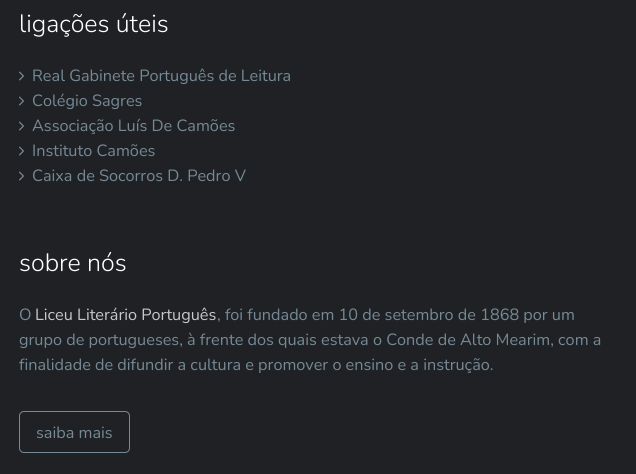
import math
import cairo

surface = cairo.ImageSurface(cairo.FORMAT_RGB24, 636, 474)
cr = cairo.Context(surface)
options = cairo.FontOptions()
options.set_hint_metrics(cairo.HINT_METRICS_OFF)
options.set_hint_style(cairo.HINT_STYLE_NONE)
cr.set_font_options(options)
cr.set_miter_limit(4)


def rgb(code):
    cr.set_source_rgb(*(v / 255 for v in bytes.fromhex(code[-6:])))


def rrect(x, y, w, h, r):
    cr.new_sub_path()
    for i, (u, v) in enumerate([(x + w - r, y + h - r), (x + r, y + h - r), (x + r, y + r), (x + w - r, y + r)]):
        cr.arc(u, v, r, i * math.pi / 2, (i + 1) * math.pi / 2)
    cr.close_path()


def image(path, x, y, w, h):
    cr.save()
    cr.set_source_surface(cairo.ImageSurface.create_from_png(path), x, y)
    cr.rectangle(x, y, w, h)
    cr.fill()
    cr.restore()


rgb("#202124")
cr.paint()
image("img/1.png", 19, 71, 5, 10)
image("img/1.png", 19, 96, 5, 10)
image("img/1.png", 19, 121, 5, 10)
image("img/1.png", 19, 146, 5, 10)
image("img/1.png", 19, 171, 5, 10)
rrect(19.5, 411.5, 110, 41, 4.5)
rgb("#748a96")
cr.set_line_width(1)
cr.stroke()
cr.select_font_face("Nunito Light")
cr.set_font_size(25)
rgb("#ffffff")
cr.move_to(19, 32)
cr.show_text("ligações úteis")
cr.select_font_face("Nunito")
cr.set_font_size(16.25)
rgb("#748a96")
for x, y, s in [
    (32, 81, "Real Gabinete Português de Leitura"),
    (32, 106, "Colégio Sagres"),
    (32, 131, "Associação Luís De Camões"),
    (32, 156, "Instituto Camões"),
    (32, 181, "Caixa de Socorros D. Pedro V"),
]:
    cr.move_to(x, y)
    cr.show_text(s)
cr.select_font_face("Nunito Light")
cr.set_font_size(25)
rgb("#ffffff")
cr.move_to(19, 271)
cr.show_text("sobre nós")
cr.select_font_face("Nunito")
cr.set_font_size(16.25)
rgb("#748a96")
cr.move_to(19, 320)
cr.show_text("O")
rgb("#c7c8c8")
cr.move_to(35, 320)
cr.show_text("Liceu Literário Português")
rgb("#748a96")
for x, y, s in [
    (217, 320, ", foi fundado em 10 de setembro de 1868 por um"),
    (19, 345, "grupo de portugueses, à frente dos quais estava o Conde de Alto Mearim, com a"),
    (19, 370, "finalidade de difundir a cultura e promover o ensino e a instrução."),
    (36, 438, "saiba mais"),
]:
    cr.move_to(x, y)
    cr.show_text(s)
surface.write_to_png("page.png")
